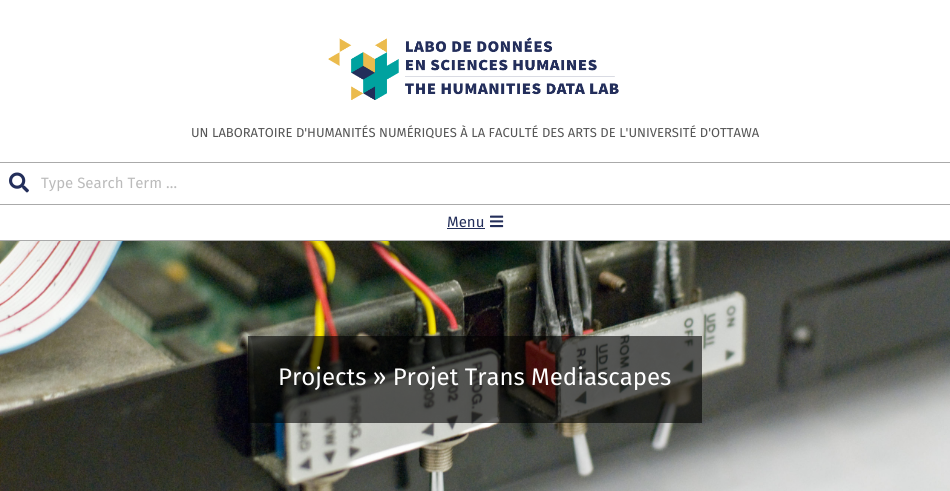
import math
import cairo

surface = cairo.ImageSurface(cairo.FORMAT_RGB24, 950, 491)
cr = cairo.Context(surface)
options = cairo.FontOptions()
options.set_hint_metrics(cairo.HINT_METRICS_OFF)
options.set_hint_style(cairo.HINT_STYLE_NONE)
cr.set_font_options(options)
cr.set_miter_limit(4)


def rgb(code):
    cr.set_source_rgb(*(v / 255 for v in bytes.fromhex(code[-6:])))


def image(path, x, y, w, h):
    cr.save()
    cr.set_source_surface(cairo.ImageSurface.create_from_png(path), x, y)
    cr.rectangle(x, y, w, h)
    cr.fill()
    cr.restore()


rgb("#ffffff")
cr.paint()
rgb("#aaaaaa")
cr.rectangle(0, 204, 950, 1)
cr.fill()
image("img/1.png", 328, 37, 291, 63)
cr.rectangle(0, 162, 950, 1)
cr.fill()
image("img/2.png", 9, 172, 20, 21)
cr.rectangle(0, 240, 950, 1)
cr.fill()
rgb("#232e5a")
cr.rectangle(447, 228, 38, 1)
cr.fill()
image("img/3.png", 490, 215, 14, 13)
image("img/4.png", 0, 241, 950, 250)
cr.set_source_rgba(0, 0, 0, 0.6)
cr.rectangle(248, 336, 454, 87)
cr.fill()
cr.select_font_face("Fira Sans")
cr.set_font_size(13)
rgb("#555555")
cr.move_to(191, 137)
cr.show_text("UN LABORATOIRE D'HUMANITÉS NUMÉRIQUES À LA FACULTÉ DES ARTS DE L'UNIVERSITÉ D'OTTAWA")
cr.set_font_size(15)
rgb("#bbbbbb")
cr.move_to(41, 188)
cr.show_text("Type Search Term …")
rgb("#232e5a")
cr.move_to(447, 227)
cr.show_text("Menu")
cr.set_font_size(24)
rgb("#ffffff")
cr.move_to(278, 385)
cr.show_text("Projects » Projet Trans Mediascapes")
surface.write_to_png("page.png")
